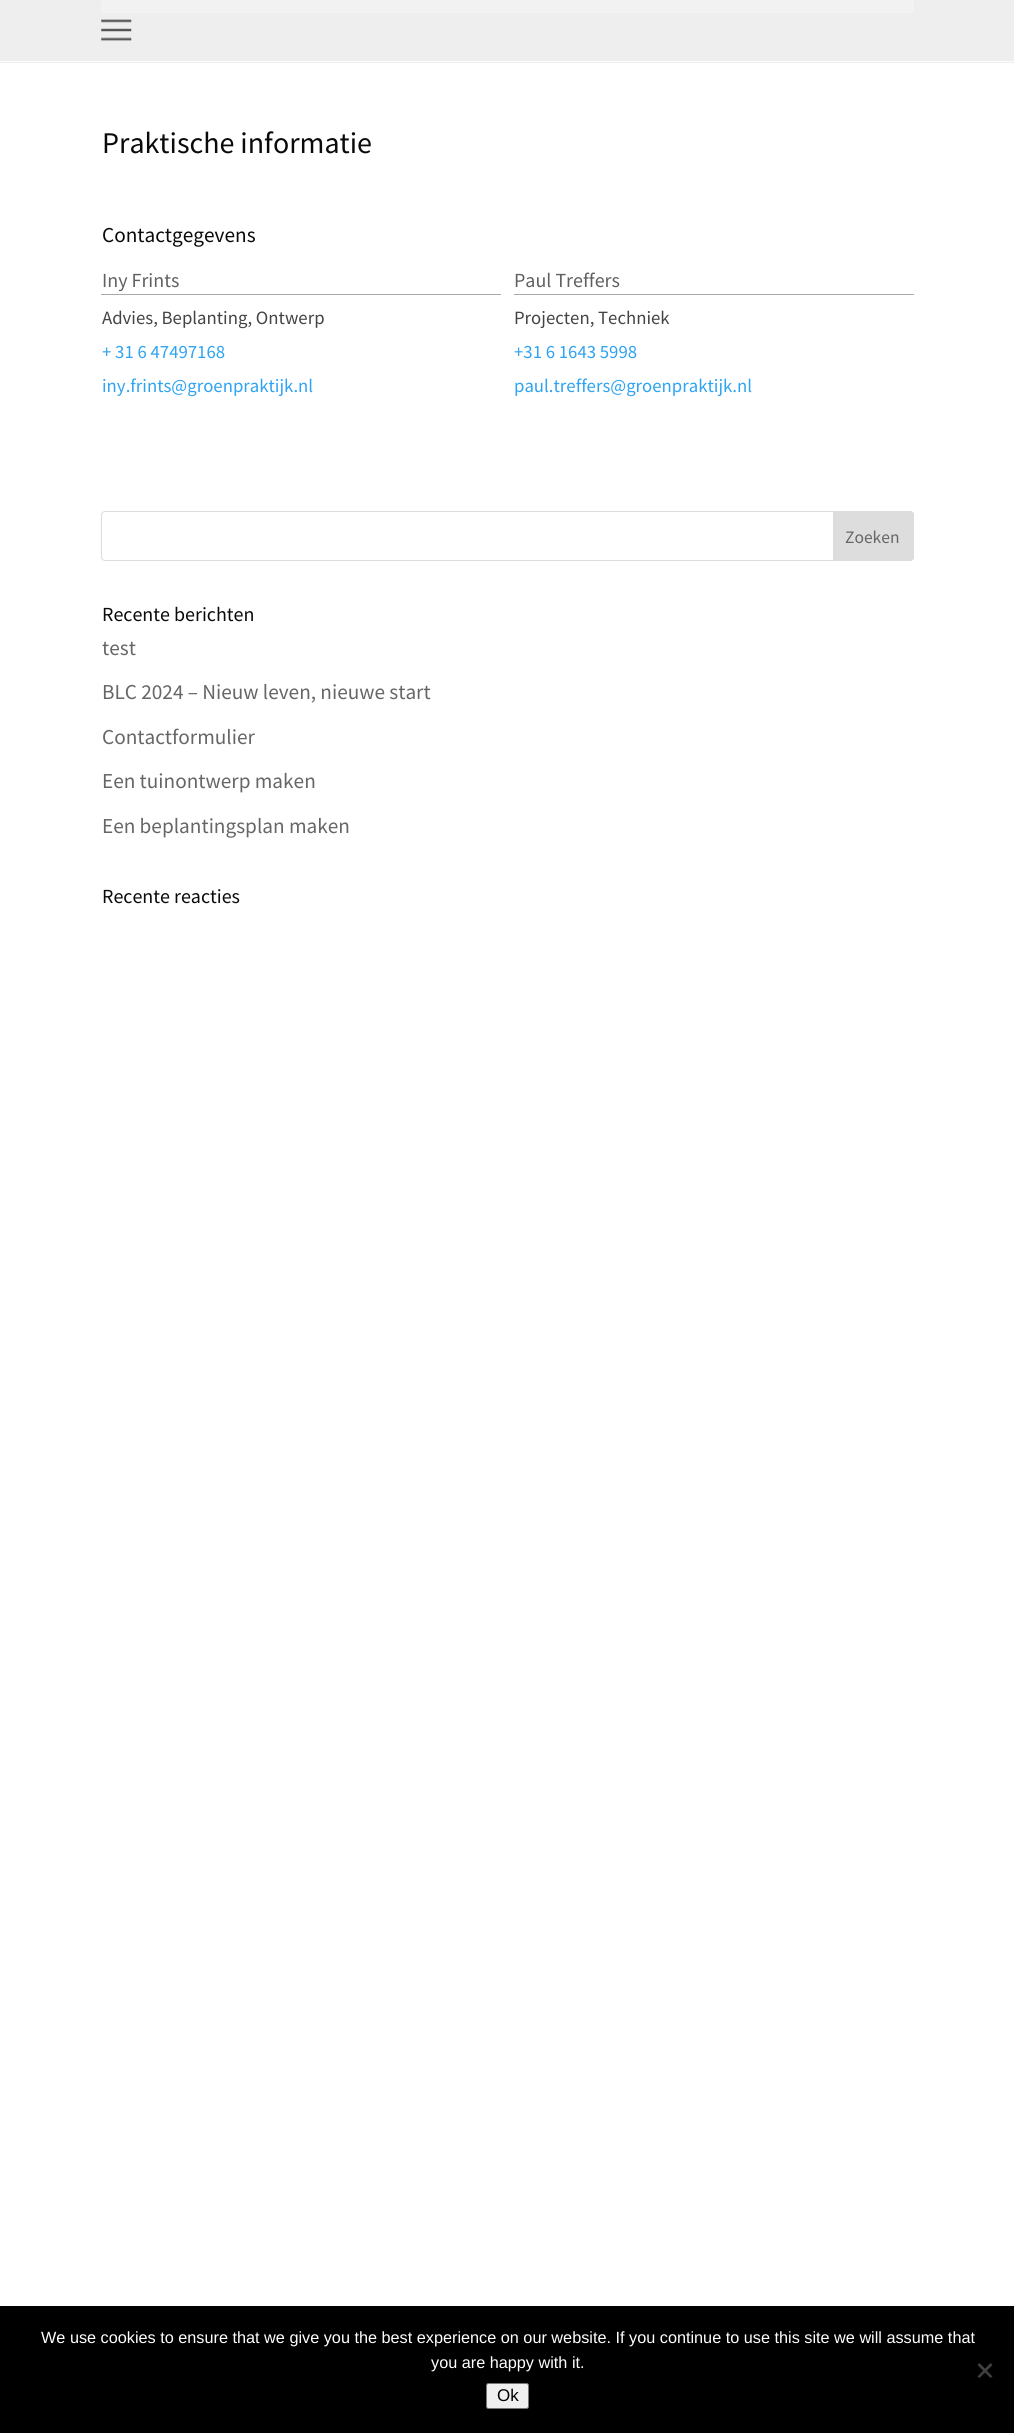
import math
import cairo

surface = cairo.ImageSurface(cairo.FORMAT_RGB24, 1014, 2433)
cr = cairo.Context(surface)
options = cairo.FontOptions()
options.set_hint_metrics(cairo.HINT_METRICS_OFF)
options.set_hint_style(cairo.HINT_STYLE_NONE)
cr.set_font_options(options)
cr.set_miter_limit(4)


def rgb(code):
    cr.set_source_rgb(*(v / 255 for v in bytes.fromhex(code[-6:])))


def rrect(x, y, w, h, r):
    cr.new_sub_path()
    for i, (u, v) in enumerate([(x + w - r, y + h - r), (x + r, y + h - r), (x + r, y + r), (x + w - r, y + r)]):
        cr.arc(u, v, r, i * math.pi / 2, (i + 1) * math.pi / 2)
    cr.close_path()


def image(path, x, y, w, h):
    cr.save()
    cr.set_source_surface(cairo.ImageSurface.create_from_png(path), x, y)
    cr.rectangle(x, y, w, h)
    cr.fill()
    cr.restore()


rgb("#ffffff")
cr.paint()
for x, y, w, h, color in [
    (0, 0, 1014, 63, "#eeeeee"),
    (0, 61, 1014, 1, "#fcfcfc"),
    (101, 0, 813, 13, "#f2f2f2"),
]:
    rgb(color)
    cr.rectangle(x, y, w, h)
    cr.fill()
image("img/1.png", 101, 19, 31, 22)
rgb("#aaaaaa")
cr.rectangle(101, 294, 400, 1)
cr.fill()
cr.rectangle(514, 294, 400, 1)
cr.fill()
rrect(101.5, 511.5, 812, 49, 3.5)
rgb("#dddddd")
cr.set_line_width(1)
cr.stroke()
cr.new_path()
cr.move_to(833.5, 511.5)
cr.line_to(910, 511.5)
cr.curve_to(912, 511.5, 913.5, 513, 913.5, 515)
cr.line_to(913.5, 557)
cr.curve_to(913.5, 559, 912, 560.5, 910, 560.5)
cr.line_to(833.5, 560.5)
cr.close_path()
cr.fill_preserve()
cr.stroke()
rgb("#000000")
cr.rectangle(0, 2306, 1014, 127)
cr.fill()
rgb("#404040")
cr.new_path()
cr.move_to(990.5, 2363)
cr.line_to(992.5, 2365)
cr.line_to(979.5, 2378)
cr.line_to(977.5, 2376.5)
cr.close_path()
cr.fill()
cr.new_path()
cr.move_to(977.5, 2365)
cr.line_to(979.5, 2363)
cr.line_to(992.5, 2376.5)
cr.line_to(990.5, 2378)
cr.close_path()
cr.fill()
rgb("#efefef")
rrect(486.5, 2383.5, 42, 25, 2)
cr.fill_preserve()
rgb("#767676")
cr.stroke()
cr.select_font_face("Source Sans Pro")
cr.set_font_size(30)
rgb("#0a0a0a")
cr.move_to(102, 153)
cr.show_text("Praktische informatie")
cr.set_font_size(21.25)
cr.move_to(102, 242)
cr.show_text("Contactgegevens")
cr.set_font_size(20)
rgb("#606060")
cr.move_to(102, 287)
cr.show_text("Iny Frints")
cr.set_font_size(18.75)
rgb("#444444")
cr.move_to(102, 324)
cr.show_text("Advies, Beplanting, Ontwerp")
rgb("#2ea3f2")
cr.move_to(102, 358)
cr.show_text("+ 31 6 47497168")
cr.move_to(102, 392)
cr.show_text("iny.frints@groenpraktijk.nl")
cr.set_font_size(20)
rgb("#606060")
cr.move_to(514, 287)
cr.show_text("Paul Treffers")
cr.set_font_size(18.75)
rgb("#444444")
cr.move_to(514, 324)
cr.show_text("Projecten, Techniek")
rgb("#2ea3f2")
cr.move_to(514, 358)
cr.show_text("+31 6 1643 5998")
cr.move_to(514, 392)
cr.show_text("paul.treffers@groenpraktijk.nl")
cr.set_font_size(17.5)
rgb("#666666")
cr.move_to(845, 543)
cr.show_text("Zoeken")
cr.set_font_size(20)
rgb("#0a0a0a")
cr.move_to(102, 621)
cr.show_text("Recente berichten")
cr.set_font_size(21.25)
rgb("#666666")
for x, y, s in [
    (102, 655, "test"),
    (102, 699, "BLC 2024 – Nieuw leven, nieuwe start"),
    (102, 744, "Contactformulier"),
    (102, 788, "Een tuinontwerp maken"),
    (102, 833, "Een beplantingsplan maken"),
]:
    cr.move_to(x, y)
    cr.show_text(s)
cr.set_font_size(20)
rgb("#0a0a0a")
cr.move_to(102, 903)
cr.show_text("Recente reacties")
cr.select_font_face("Liberation Sans")
cr.set_font_size(16.25)
rgb("#ffffff")
cr.move_to(41, 2343)
cr.show_text("We use cookies to ensure that we give you the best experience on our website. If you continue to use this site we will assume that")
cr.move_to(431, 2368)
cr.show_text("you are happy with it.")
cr.set_font_size(17)
rgb("#000000")
cr.move_to(497, 2401)
cr.show_text("Ok")
surface.write_to_png("page.png")
